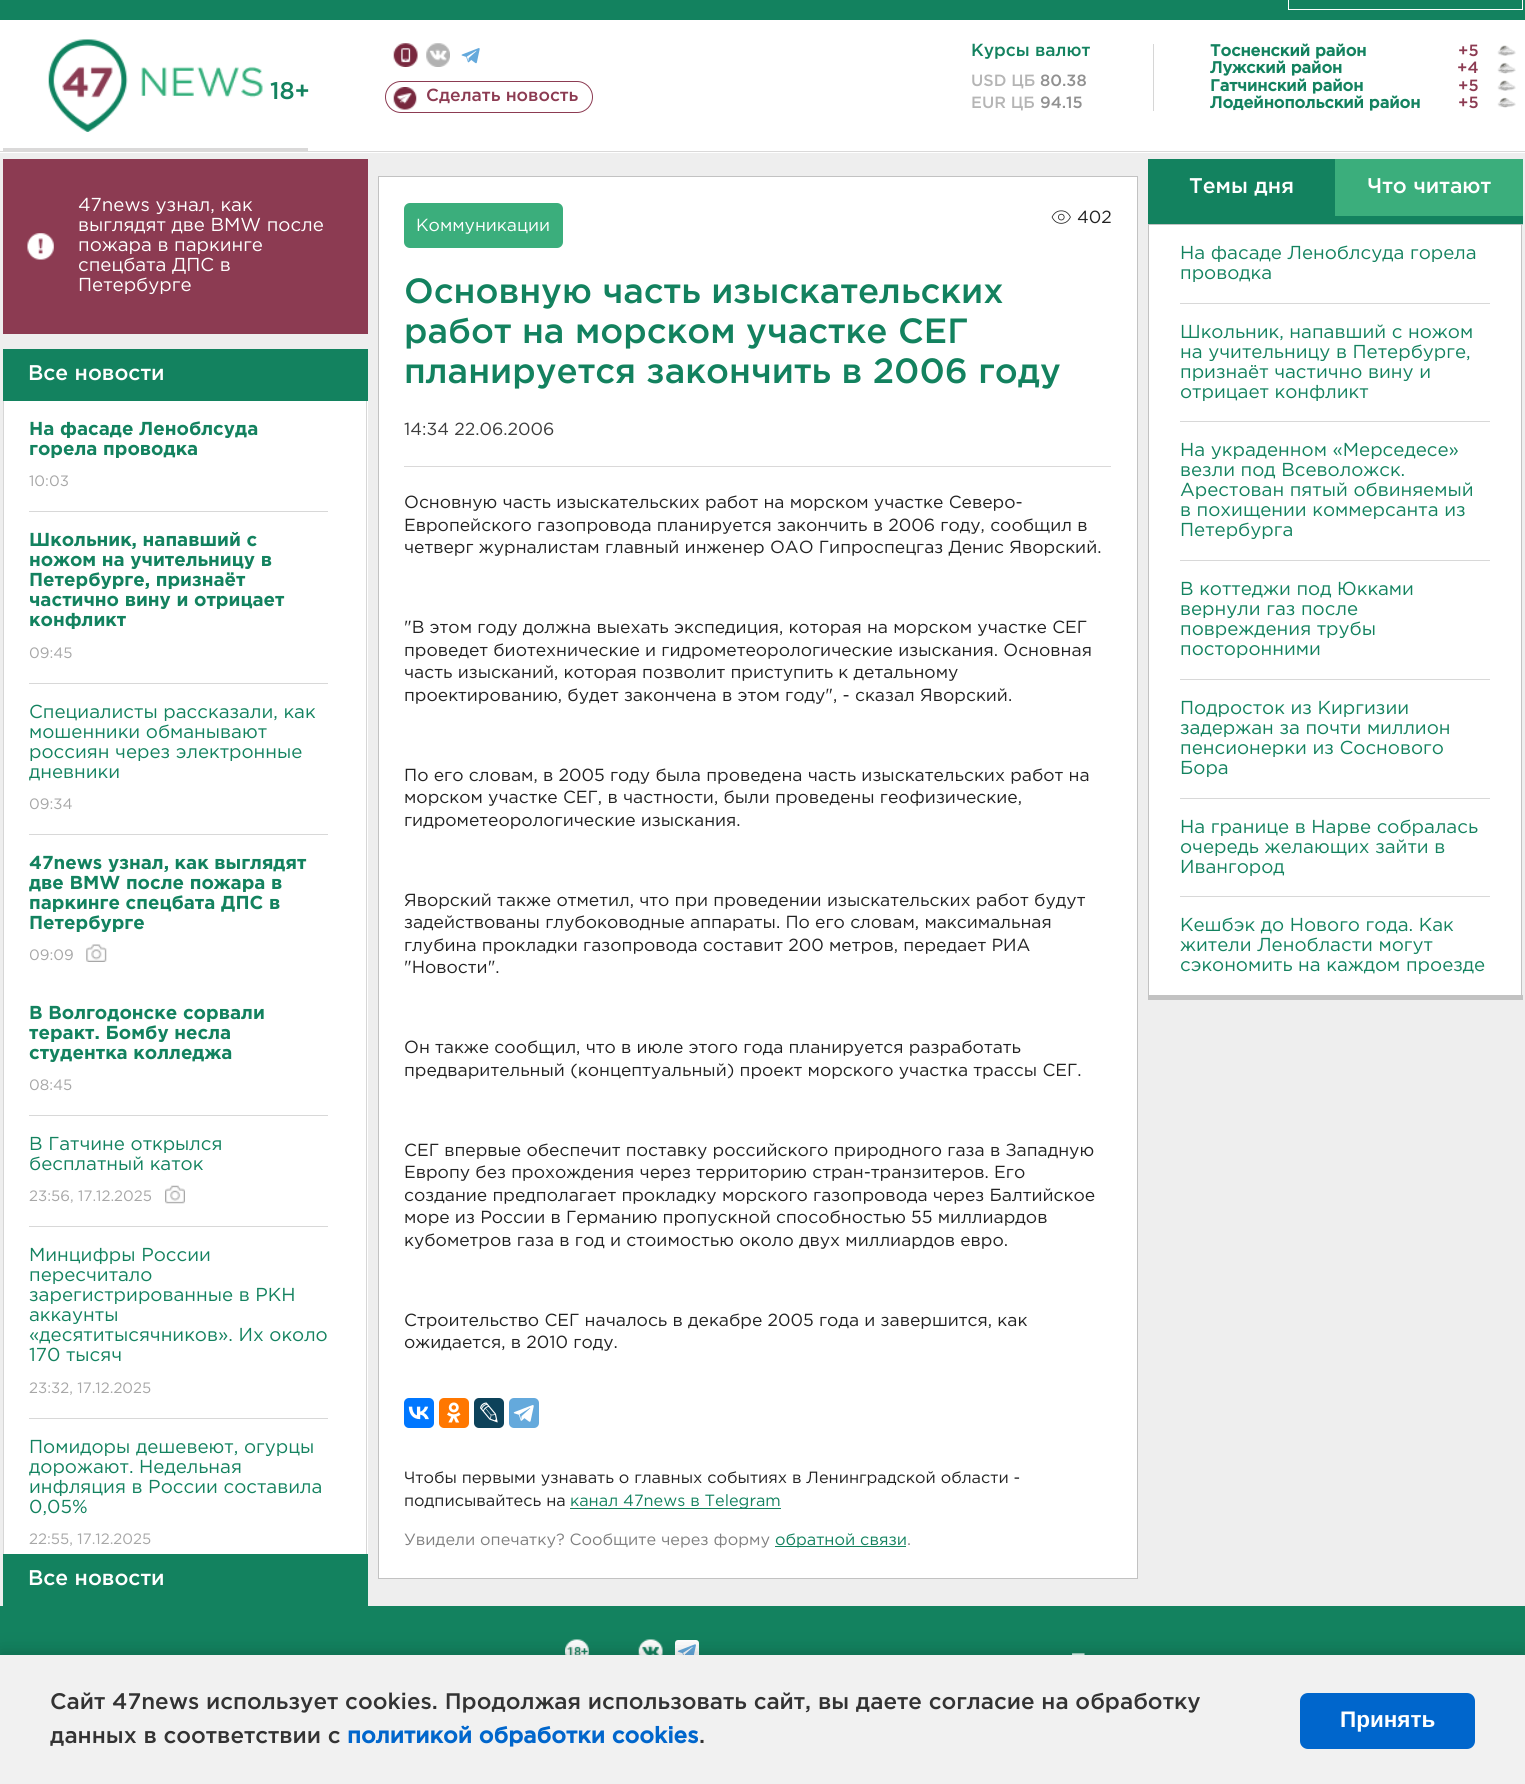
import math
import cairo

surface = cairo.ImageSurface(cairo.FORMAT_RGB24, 1525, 1784)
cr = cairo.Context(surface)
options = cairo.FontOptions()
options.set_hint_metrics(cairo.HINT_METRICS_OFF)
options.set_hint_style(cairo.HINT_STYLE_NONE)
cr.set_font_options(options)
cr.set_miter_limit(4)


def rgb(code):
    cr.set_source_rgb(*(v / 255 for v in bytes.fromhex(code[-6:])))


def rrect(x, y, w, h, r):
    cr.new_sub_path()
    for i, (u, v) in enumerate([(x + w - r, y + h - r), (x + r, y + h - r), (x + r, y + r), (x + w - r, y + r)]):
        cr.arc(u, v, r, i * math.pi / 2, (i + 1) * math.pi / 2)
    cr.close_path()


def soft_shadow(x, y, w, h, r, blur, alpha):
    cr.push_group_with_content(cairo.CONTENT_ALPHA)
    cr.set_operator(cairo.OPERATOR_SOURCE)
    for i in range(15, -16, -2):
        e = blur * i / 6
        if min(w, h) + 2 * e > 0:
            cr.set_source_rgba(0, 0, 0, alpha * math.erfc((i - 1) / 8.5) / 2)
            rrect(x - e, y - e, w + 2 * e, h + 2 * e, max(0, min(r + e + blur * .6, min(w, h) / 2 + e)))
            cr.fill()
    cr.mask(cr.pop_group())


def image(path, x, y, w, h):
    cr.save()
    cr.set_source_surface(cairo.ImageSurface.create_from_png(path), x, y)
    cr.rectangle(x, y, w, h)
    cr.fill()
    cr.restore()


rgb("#eeeeee")
cr.paint()
rgb("#13825f")
cr.rectangle(0, 0, 1525, 20)
cr.fill()
cr.rectangle(1288.5, -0.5, 234, 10)
rgb("#ffffff")
cr.set_line_width(1)
cr.stroke()
for x, y, w, h, color in [
    (0, 20, 1525, 133, "#ffffff"),
    (0, 151, 1525, 1, "#dad9d9"),
    (3, 148, 305, 3, "#dad9d9"),
]:
    rgb(color)
    cr.rectangle(x, y, w, h)
    cr.fill()
image("img/1.png", 48, 39, 215, 93)
rgb("#d6d6d6")
cr.rectangle(1153, 44, 1, 67)
cr.fill()
image("img/2.png", 1497, 45, 19, 11)
image("img/3.png", 1497, 62, 19, 12)
image("img/2.png", 1497, 80, 19, 11)
image("img/4.png", 1497, 97, 19, 11)
image("img/5.png", 393, 43, 25, 24)
image("img/6.png", 426, 43, 24, 24)
image("img/7.png", 461, 48, 19, 16)
image("img/8.png", 393, 87, 24, 23)
rrect(385.5, 81.5, 207, 31, 15.5)
rgb("#8c3b52")
cr.stroke()
cr.rectangle(3, 159, 365, 175)
cr.fill()
image("img/9.png", 27, 233, 27, 27)
for x, y, w, h, color in [
    (3, 349, 365, 52, "#13825f"),
    (4, 401, 364, 1153, "#ffffff"),
    (366, 401, 1, 1153, "#d6d6d6"),
    (3, 401, 1, 1153, "#d6d6d6"),
    (29, 511, 299, 1, "#d8d8d8"),
    (29, 683, 299, 1, "#d8d8d8"),
    (29, 834, 299, 1, "#d8d8d8"),
]:
    rgb(color)
    cr.rectangle(x, y, w, h)
    cr.fill()
image("img/10.png", 86, 944, 21, 18)
cr.rectangle(29, 1115, 299, 1)
cr.fill()
cr.rectangle(29, 1226, 299, 1)
cr.fill()
image("img/11.png", 165, 1185, 20, 19)
cr.rectangle(29, 1418, 299, 1)
cr.fill()
rgb("#13825f")
cr.rectangle(3, 1554, 365, 52)
cr.fill()
rgb("#ffffff")
cr.rectangle(378.5, 176.5, 759, 1402)
cr.fill_preserve()
rgb("#c2c2c2")
cr.stroke()
rgb("#dad9d9")
cr.rectangle(404, 466, 707, 1)
cr.fill()
rgb("#3bae7c")
rrect(404, 203, 159, 45, 6)
cr.fill()
image("img/12.png", 1051, 210, 20, 14)
rgb("#0077ff")
rrect(404, 1398, 30, 30, 5)
cr.fill()
image("img/13.png", 408, 1406, 21, 14)
rgb("#ff7700")
rrect(439, 1398, 30, 30, 5)
cr.fill()
image("img/14.png", 447, 1402, 14, 21)
rgb("#0d425a")
rrect(474, 1398, 30, 30, 5)
cr.fill()
image("img/15.png", 480, 1402, 18, 21)
rgb("#64a9dc")
rrect(509, 1398, 30, 30, 5)
cr.fill()
image("img/16.png", 513, 1405, 21, 17)
for x, y, w, h, color in [
    (570, 1508, 211, 1, "#13825f"),
    (775, 1546, 131, 1, "#13825f"),
    (1148, 159, 375, 65, "#13825f"),
    (1335, 159, 188, 57, "#3bae7c"),
    (1149, 225, 372, 770, "#ffffff"),
    (1148, 224, 375, 1, "#c2c2c2"),
    (1521, 224, 1, 776, "#c2c2c2"),
    (1148, 995, 375, 5, "#c2c2c2"),
    (1148, 224, 1, 776, "#c2c2c2"),
    (1180, 303, 310, 1, "#d8d8d8"),
    (1180, 421, 310, 1, "#d8d8d8"),
    (1180, 560, 310, 1, "#d8d8d8"),
    (1180, 679, 310, 1, "#d8d8d8"),
    (1180, 798, 310, 1, "#d8d8d8"),
    (1180, 896, 310, 1, "#d8d8d8"),
    (0, 1606, 1525, 49, "#13825f"),
]:
    rgb(color)
    cr.rectangle(x, y, w, h)
    cr.fill()
image("img/17.png", 565, 1639, 24, 16)
image("img/18.png", 638, 1639, 25, 16)
image("img/19.png", 675, 1640, 24, 15)
rgb("#000000")
soft_shadow(0, 1653, 1525, 130, 0, 9.5, 0.2)
rgb("#f1f1f1")
cr.rectangle(0, 1655, 1525, 129)
cr.fill()
rgb("#0066cc")
rrect(1300, 1693, 175, 56, 8)
cr.fill()
cr.select_font_face("Gotham Medium")
cr.set_font_size(17.5)
rgb("#13825f")
cr.move_to(971, 56)
cr.show_text("Курсы валют")
cr.set_font_size(16.25)
rgb("#b5b5b5")
cr.move_to(971, 86)
cr.show_text("USD ЦБ")
rgb("#919191")
cr.move_to(1040, 86)
cr.show_text("80.38")
rgb("#b5b5b5")
cr.move_to(971, 108)
cr.show_text("EUR ЦБ")
rgb("#919191")
cr.move_to(1040, 108)
cr.show_text("94.15")
cr.select_font_face("Gotham", cairo.FONT_SLANT_NORMAL, cairo.FONT_WEIGHT_BOLD)
rgb("#13825f")
cr.move_to(1210, 56)
cr.show_text("Тосненский район")
cr.select_font_face("Gotham Medium")
rgb("#8c3b52")
cr.move_to(1458, 56)
cr.show_text("+5")
cr.select_font_face("Gotham", cairo.FONT_SLANT_NORMAL, cairo.FONT_WEIGHT_BOLD)
rgb("#13825f")
cr.move_to(1210, 73)
cr.show_text("Лужский район")
cr.select_font_face("Gotham Medium")
rgb("#8c3b52")
cr.move_to(1457, 73)
cr.show_text("+4")
cr.select_font_face("Gotham", cairo.FONT_SLANT_NORMAL, cairo.FONT_WEIGHT_BOLD)
rgb("#13825f")
cr.move_to(1210, 91)
cr.show_text("Гатчинский район")
cr.select_font_face("Gotham Medium")
rgb("#8c3b52")
cr.move_to(1458, 91)
cr.show_text("+5")
cr.select_font_face("Gotham", cairo.FONT_SLANT_NORMAL, cairo.FONT_WEIGHT_BOLD)
rgb("#13825f")
cr.move_to(1210, 108)
cr.show_text("Лодейнопольский район")
cr.select_font_face("Gotham Medium")
rgb("#8c3b52")
cr.move_to(1458, 108)
cr.show_text("+5")
cr.set_font_size(24)
rgb("#13825f")
cr.move_to(270, 99)
cr.show_text("18+")
cr.set_font_size(17.5)
rgb("#8c3b52")
cr.move_to(426, 101)
cr.show_text("Сделать новость")
cr.select_font_face("Gotham")
cr.set_font_size(18.75)
rgb("#ffffff")
for x, y, s in [
    (78, 211, "47news узнал, как"),
    (78, 231, "выглядят две BMW после"),
    (78, 251, "пожара в паркинге"),
    (78, 271, "спецбата ДПС в"),
    (78, 291, "Петербурге"),
]:
    cr.move_to(x, y)
    cr.show_text(s)
cr.select_font_face("Gotham Medium")
cr.set_font_size(21.25)
cr.move_to(28, 380)
cr.show_text("Все новости")
cr.select_font_face("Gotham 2", cairo.FONT_SLANT_NORMAL, cairo.FONT_WEIGHT_BOLD)
cr.set_font_size(18.75)
rgb("#13825f")
cr.move_to(29, 435)
cr.show_text("На фасаде Леноблсуда")
cr.move_to(29, 455)
cr.show_text("горела проводка")
cr.select_font_face("Gotham")
cr.set_font_size(15)
rgb("#a7a7a7")
cr.move_to(29, 486)
cr.show_text("10:03")
cr.select_font_face("Gotham 2", cairo.FONT_SLANT_NORMAL, cairo.FONT_WEIGHT_BOLD)
cr.set_font_size(18.75)
rgb("#13825f")
for x, y, s in [
    (29, 546, "Школьник, напавший с"),
    (29, 566, "ножом на учительницу в"),
    (29, 586, "Петербурге, признаёт"),
    (29, 606, "частично вину и отрицает"),
    (29, 626, "конфликт"),
]:
    cr.move_to(x, y)
    cr.show_text(s)
cr.select_font_face("Gotham")
cr.set_font_size(15)
rgb("#a7a7a7")
cr.move_to(29, 658)
cr.show_text("09:45")
cr.set_font_size(18.75)
rgb("#13825f")
for x, y, s in [
    (29, 718, "Специалисты рассказали, как"),
    (29, 738, "мошенники обманывают"),
    (29, 758, "россиян через электронные"),
    (29, 778, "дневники"),
]:
    cr.move_to(x, y)
    cr.show_text(s)
cr.set_font_size(15)
rgb("#a7a7a7")
cr.move_to(29, 809)
cr.show_text("09:34")
cr.select_font_face("Gotham 2", cairo.FONT_SLANT_NORMAL, cairo.FONT_WEIGHT_BOLD)
cr.set_font_size(18.75)
rgb("#13825f")
for x, y, s in [
    (29, 869, "47news узнал, как выглядят"),
    (29, 889, "две BMW после пожара в"),
    (29, 909, "паркинге спецбата ДПС в"),
    (29, 929, "Петербурге"),
]:
    cr.move_to(x, y)
    cr.show_text(s)
cr.select_font_face("Gotham")
cr.set_font_size(15)
rgb("#a7a7a7")
cr.move_to(29, 960)
cr.show_text("09:09")
cr.select_font_face("Gotham 2", cairo.FONT_SLANT_NORMAL, cairo.FONT_WEIGHT_BOLD)
cr.set_font_size(18.75)
rgb("#13825f")
for x, y, s in [
    (29, 1019, "В Волгодонске сорвали"),
    (29, 1039, "теракт. Бомбу несла"),
    (29, 1059, "студентка колледжа"),
]:
    cr.move_to(x, y)
    cr.show_text(s)
cr.select_font_face("Gotham")
cr.set_font_size(15)
rgb("#a7a7a7")
cr.move_to(29, 1090)
cr.show_text("08:45")
cr.set_font_size(18.75)
rgb("#13825f")
cr.move_to(29, 1150)
cr.show_text("В Гатчине открылся")
cr.move_to(29, 1170)
cr.show_text("бесплатный каток")
cr.set_font_size(15)
rgb("#a7a7a7")
cr.move_to(29, 1201)
cr.show_text("23:56, 17.12.2025")
cr.set_font_size(18.75)
rgb("#13825f")
for x, y, s in [
    (29, 1261, "Минцифры России"),
    (29, 1281, "пересчитало"),
    (29, 1301, "зарегистрированные в РКН"),
    (29, 1321, "аккаунты"),
    (29, 1341, "«десятитысячников». Их около"),
    (29, 1361, "170 тысяч"),
]:
    cr.move_to(x, y)
    cr.show_text(s)
cr.set_font_size(15)
rgb("#a7a7a7")
cr.move_to(29, 1393)
cr.show_text("23:32, 17.12.2025")
cr.set_font_size(18.75)
rgb("#13825f")
for x, y, s in [
    (29, 1453, "Помидоры дешевеют, огурцы"),
    (29, 1473, "дорожают. Недельная"),
    (29, 1493, "инфляция в России составила"),
    (29, 1513, "0,05%"),
]:
    cr.move_to(x, y)
    cr.show_text(s)
cr.set_font_size(15)
rgb("#a7a7a7")
cr.move_to(29, 1544)
cr.show_text("22:55, 17.12.2025")
cr.select_font_face("Gotham Medium")
cr.set_font_size(21.25)
rgb("#ffffff")
cr.move_to(28, 1585)
cr.show_text("Все новости")
cr.select_font_face("Gotham")
cr.set_font_size(17.5)
cr.move_to(416, 231)
cr.show_text("Коммуникации")
rgb("#222222")
cr.move_to(1077, 223)
cr.show_text("402")
cr.select_font_face("Gotham Medium")
cr.set_font_size(35)
rgb("#13825f")
for x, y, s in [
    (404, 303, "Основную часть изыскательских"),
    (404, 343, "работ на морском участке СЕГ"),
    (404, 383, "планируется закончить в 2006 году"),
]:
    cr.move_to(x, y)
    cr.show_text(s)
cr.select_font_face("Gotham")
cr.set_font_size(17.5)
rgb("#3c3c3c")
cr.move_to(404, 435)
cr.show_text("14:34 22.06.2006")
rgb("#222222")
for x, y, s in [
    (404, 508, "Основную часть изыскательских работ на морском участке Северо-"),
    (404, 531, "Европейского газопровода планируется закончить в 2006 году, сообщил в"),
    (404, 553, "четверг журналистам главный инженер ОАО Гипроспецгаз Денис Яворский."),
    (404, 633, "\"В этом году должна выехать экспедиция, которая на морском участке СЕГ"),
    (404, 656, "проведет биотехнические и гидрометеорологические изыскания. Основная"),
    (404, 678, "часть изысканий, которая позволит приступить к детальному"),
    (404, 701, "проектированию, будет закончена в этом году\", - сказал Яворский."),
    (404, 781, "По его словам, в 2005 году была проведена часть изыскательских работ на"),
    (404, 803, "морском участке СЕГ, в частности, были проведены геофизические,"),
    (404, 826, "гидрометеорологические изыскания."),
    (404, 906, "Яворский также отметил, что при проведении изыскательских работ будут"),
    (404, 928, "задействованы глубоководные аппараты. По его словам, максимальная"),
    (404, 951, "глубина прокладки газопровода составит 200 метров, передает РИА"),
    (404, 973, "\"Новости\"."),
    (404, 1053, "Он также сообщил, что в июле этого года планируется разработать"),
    (404, 1076, "предварительный (концептуальный) проект морского участка трассы СЕГ."),
    (404, 1156, "СЕГ впервые обеспечит поставку российского природного газа в Западную"),
    (404, 1178, "Европу без прохождения через территорию стран-транзитеров. Его"),
    (404, 1201, "создание предполагает прокладку морского газопровода через Балтийское"),
    (404, 1223, "море из России в Германию пропускной способностью 55 миллиардов"),
    (404, 1246, "кубометров газа в год и стоимостью около двух миллиардов евро."),
    (404, 1326, "Строительство СЕГ началось в декабре 2005 года и завершится, как"),
    (404, 1348, "ожидается, в 2010 году."),
]:
    cr.move_to(x, y)
    cr.show_text(s)
cr.set_font_size(16.25)
cr.move_to(404, 1483)
cr.show_text("Чтобы первыми узнавать о главных событиях в Ленинградской области -")
cr.move_to(404, 1506)
cr.show_text("подписывайтесь на")
rgb("#13825f")
cr.move_to(570, 1506)
cr.show_text("канал 47news в Telegram")
rgb("#808080")
cr.move_to(404, 1545)
cr.show_text("Увидели опечатку? Сообщите через форму")
rgb("#13825f")
cr.move_to(775, 1545)
cr.show_text("обратной связи")
rgb("#808080")
cr.move_to(907, 1545)
cr.show_text(".")
cr.select_font_face("Gotham Medium")
cr.set_font_size(21.25)
rgb("#ffffff")
cr.move_to(1189, 193)
cr.show_text("Темы дня")
cr.move_to(1367, 193)
cr.show_text("Что читают")
cr.select_font_face("Gotham")
cr.set_font_size(18.75)
rgb("#13825f")
for x, y, s in [
    (1180, 259, "На фасаде Леноблсуда горела"),
    (1180, 279, "проводка"),
    (1180, 338, "Школьник, напавший с ножом"),
    (1180, 358, "на учительницу в Петербурге,"),
    (1180, 378, "признаёт частично вину и"),
    (1180, 398, "отрицает конфликт"),
    (1180, 456, "На украденном «Мерседесе»"),
    (1180, 476, "везли под Всеволожск."),
    (1180, 496, "Арестован пятый обвиняемый"),
    (1180, 516, "в похищении коммерсанта из"),
    (1180, 536, "Петербурга"),
    (1180, 595, "В коттеджи под Юкками"),
    (1180, 615, "вернули газ после"),
    (1180, 635, "повреждения трубы"),
    (1180, 655, "посторонними"),
    (1180, 714, "Подросток из Киргизии"),
    (1180, 734, "задержан за почти миллион"),
    (1180, 754, "пенсионерки из Соснового"),
    (1180, 774, "Бора"),
    (1180, 833, "На границе в Нарве собралась"),
    (1180, 853, "очередь желающих зайти в"),
    (1180, 873, "Ивангород"),
    (1180, 931, "Кешбэк до Нового года. Как"),
    (1180, 951, "жители Ленобласти могут"),
    (1180, 971, "сэкономить на каждом проезде"),
]:
    cr.move_to(x, y)
    cr.show_text(s)
cr.set_font_size(16.25)
rgb("#ffffff")
cr.move_to(1071, 1659)
cr.show_text("—")
cr.select_font_face("Gotham Medium")
cr.set_font_size(22.5)
rgb("#333333")
cr.move_to(50, 1709)
cr.show_text("Сайт 47news использует cookies. Продолжая использовать сайт, вы даете согласие на обработку")
cr.move_to(50, 1743)
cr.show_text("данных в соответствии с")
cr.select_font_face("Gotham", cairo.FONT_SLANT_NORMAL, cairo.FONT_WEIGHT_BOLD)
rgb("#0066cc")
cr.move_to(347, 1743)
cr.show_text("политикой обработки cookies")
cr.select_font_face("Gotham Medium")
rgb("#333333")
cr.move_to(699, 1743)
cr.show_text(".")
cr.select_font_face("Liberation Sans", cairo.FONT_SLANT_NORMAL, cairo.FONT_WEIGHT_BOLD)
rgb("#ffffff")
cr.move_to(1340, 1727)
cr.show_text("Принять")
surface.write_to_png("page.png")
